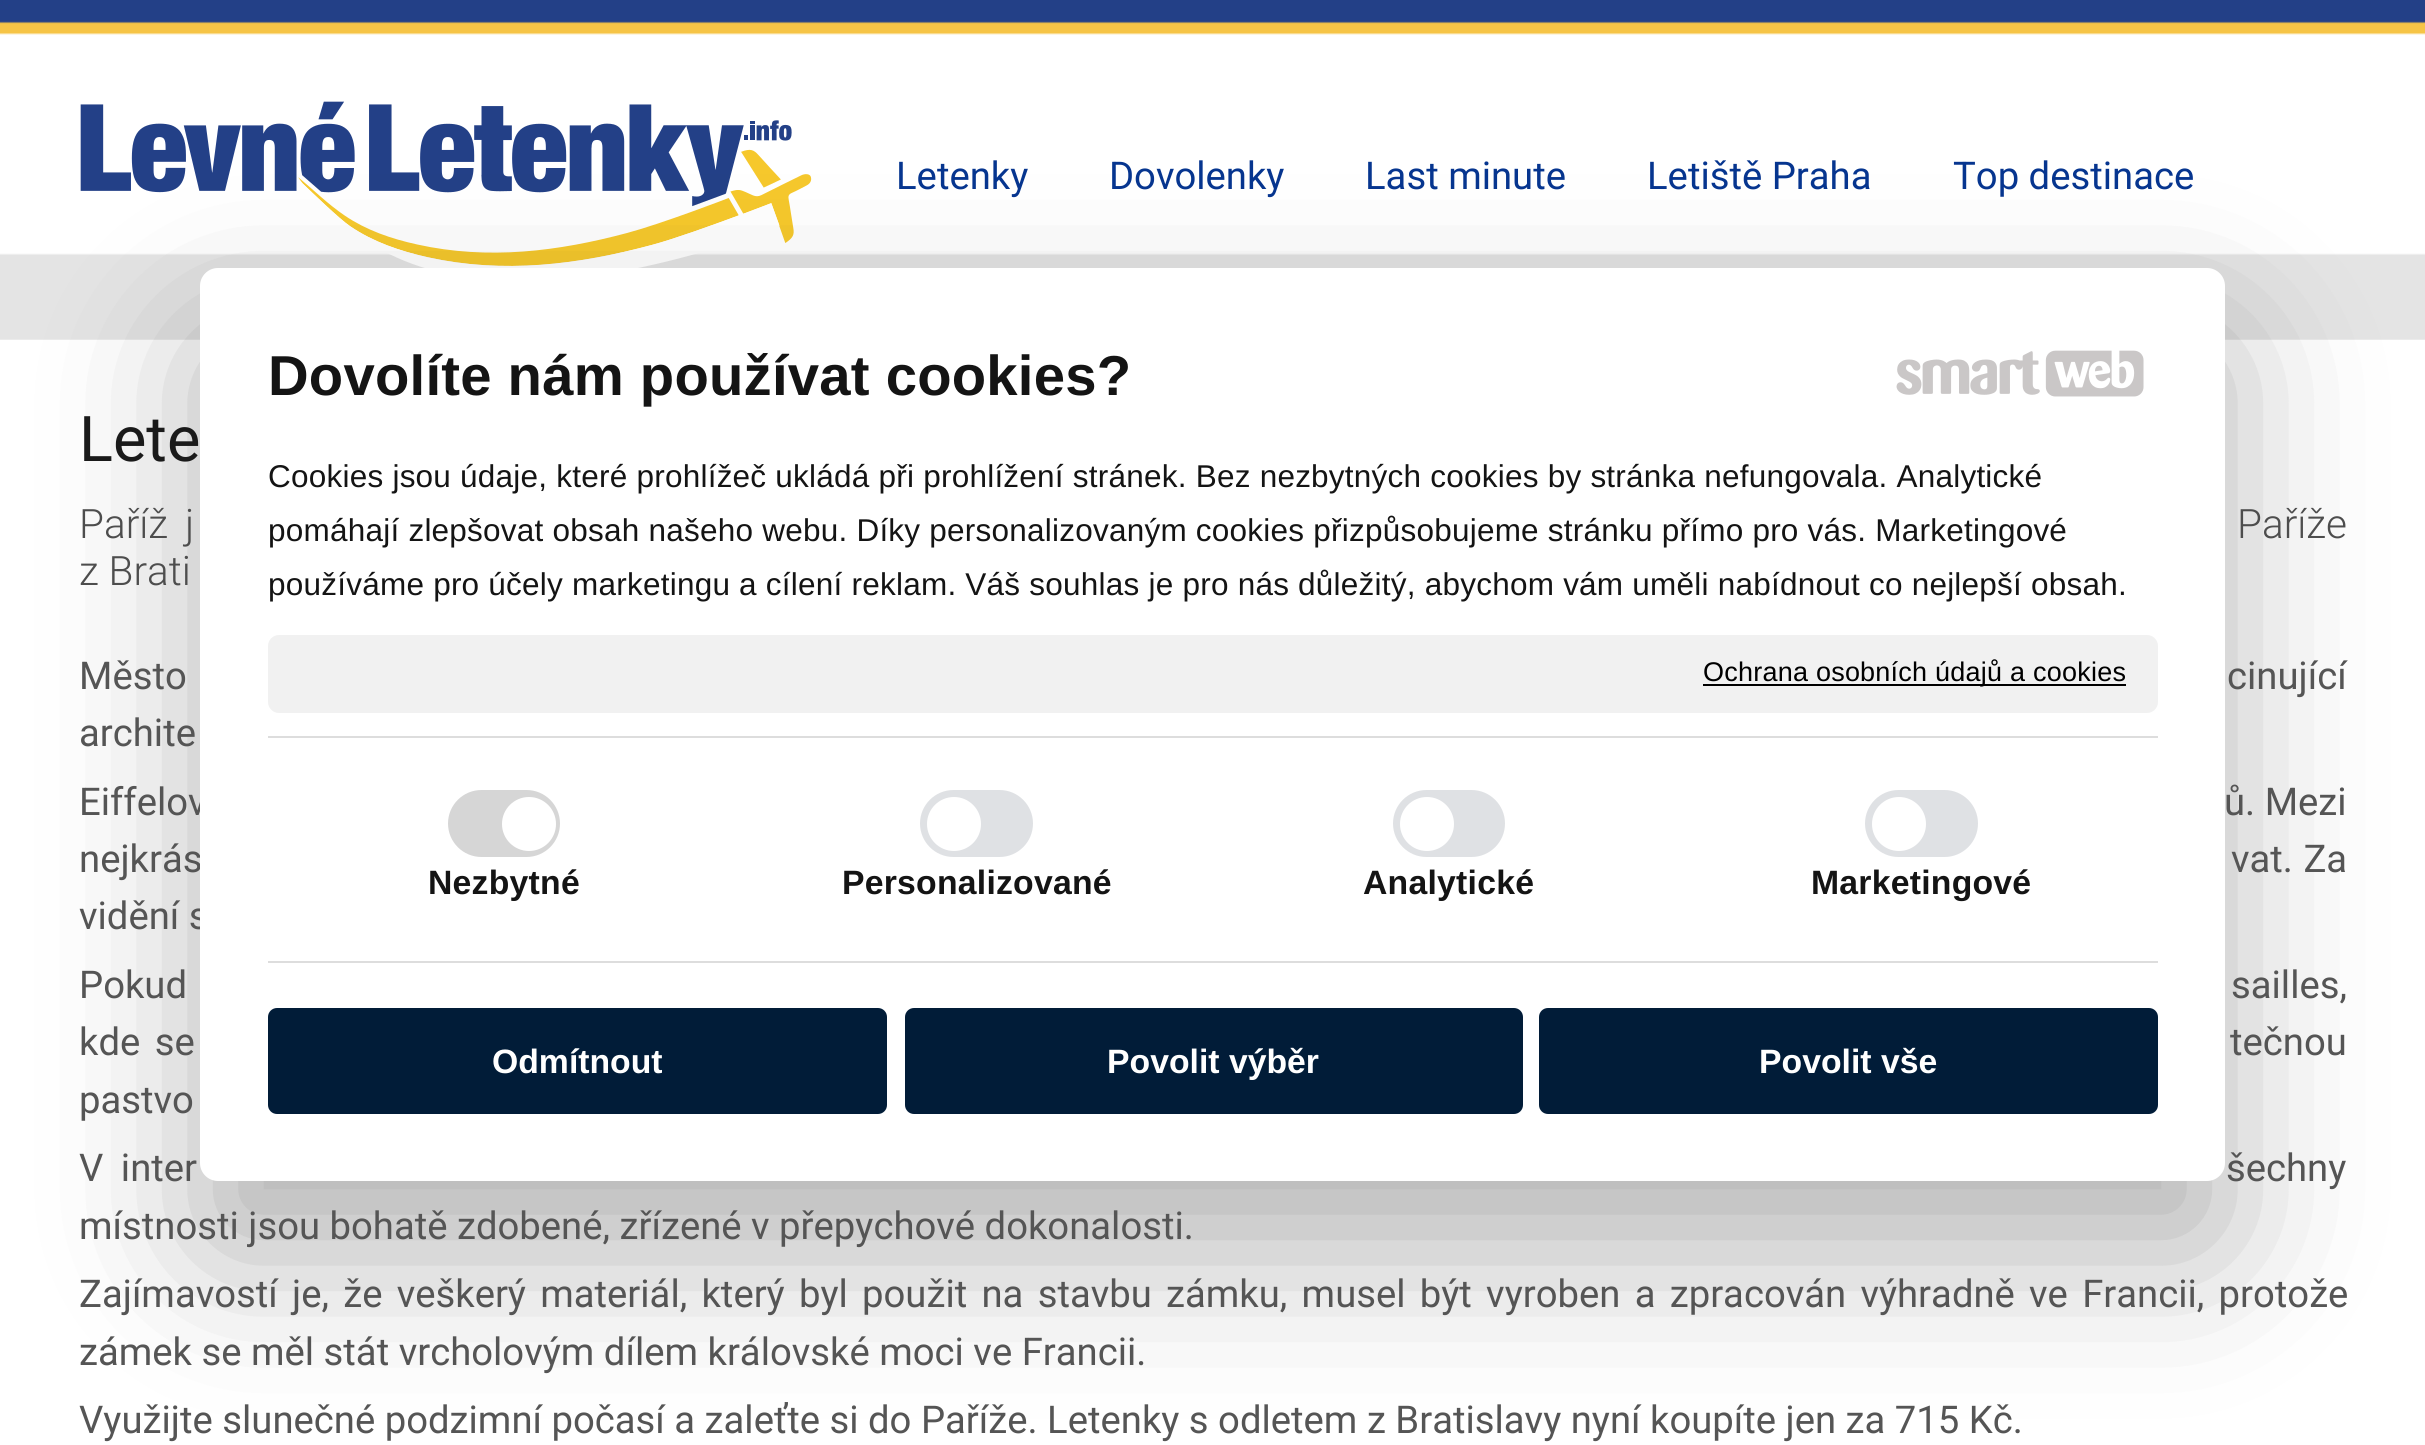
import math
import cairo

surface = cairo.ImageSurface(cairo.FORMAT_RGB24, 2425, 1445)
cr = cairo.Context(surface)
options = cairo.FontOptions()
options.set_hint_metrics(cairo.HINT_METRICS_OFF)
options.set_hint_style(cairo.HINT_STYLE_NONE)
cr.set_font_options(options)
cr.set_miter_limit(4)


def rgb(code):
    cr.set_source_rgb(*(v / 255 for v in bytes.fromhex(code[-6:])))


def tracked(x, y, s, letter, word):
    cr.move_to(x, y)
    for ch in s:
        cr.show_text(ch)
        cr.rel_move_to(letter + word * (ch == ' '), 0)


def rrect(x, y, w, h, r):
    cr.new_sub_path()
    for i, (u, v) in enumerate([(x + w - r, y + h - r), (x + r, y + h - r), (x + r, y + r), (x + w - r, y + r)]):
        cr.arc(u, v, r, i * math.pi / 2, (i + 1) * math.pi / 2)
    cr.close_path()


def soft_shadow(x, y, w, h, r, blur, alpha):
    cr.push_group_with_content(cairo.CONTENT_ALPHA)
    cr.set_operator(cairo.OPERATOR_SOURCE)
    for i in range(15, -16, -2):
        e = blur * i / 6
        if min(w, h) + 2 * e > 0:
            cr.set_source_rgba(0, 0, 0, alpha * math.erfc((i - 1) / 8.5) / 2)
            rrect(x - e, y - e, w + 2 * e, h + 2 * e, max(0, min(r + e + blur * .6, min(w, h) / 2 + e)))
            cr.fill()
    cr.mask(cr.pop_group())


def image(path, x, y, w, h):
    cr.save()
    cr.set_source_surface(cairo.ImageSurface.create_from_png(path), x, y)
    cr.rectangle(x, y, w, h)
    cr.fill()
    cr.restore()


rgb("#ffffff")
cr.paint()
image("img/1.png", 0, 0, 2425, 340)
image("img/2.png", 80, 101, 732, 167)
rgb("#000000")
soft_shadow(200, 340, 2025, 913, 18, 76.5, 0.3)
cr.select_font_face("Roboto")
cr.set_font_size(38.25)
rgb("#06358f")
for x, y, s in [
    (896, 189, "Letenky"),
    (1109, 189, "Dovolenky"),
    (1365, 189, "Last minute"),
    (1647, 189, "Letiště Praha"),
    (1953, 189, "Top destinace"),
]:
    cr.move_to(x, y)
    cr.show_text(s)
cr.set_font_size(63)
rgb("#1a1a1a")
cr.move_to(79, 461)
cr.show_text("Lete")
cr.select_font_face("Roboto Light")
cr.set_font_size(40.5)
rgb("#4d4d4d")
tracked(79, 538, "Paříž j", 0, 7)
tracked(2237, 538, "Paříže", 0, 7)
cr.move_to(79, 585)
cr.show_text("z Brati")
cr.select_font_face("Roboto")
cr.set_font_size(38.25)
rgb("#555555")
tracked(79, 689, "Město", 0, 2)
tracked(2227, 689, "cinující", 0, 2)
for x, y, s in [
    (79, 746, "archite"),
    (79, 815, "Eiffelov"),
    (2224, 815, "ů. Mezi"),
]:
    cr.move_to(x, y)
    cr.show_text(s)
tracked(79, 872, "nejkrás", 0, 1)
tracked(2231, 872, "vat. Za", 0, 1)
cr.move_to(79, 929)
cr.show_text("vidění s")
rgb("#ffffff")
rrect(200, 268, 2025, 913, 18)
cr.fill()
rgb("#dfe1e4")
rrect(1865, 790, 113, 67, 33.5)
cr.fill()
rgb("#ffffff")
cr.arc(1899, 824, 27, 0, 2 * math.pi)
cr.fill()
rgb("#dfe1e4")
rrect(1393, 790, 112, 67, 33.5)
cr.fill()
rgb("#ffffff")
cr.arc(1427, 824, 27, 0, 2 * math.pi)
cr.fill()
rgb("#dfe1e4")
rrect(920, 790, 113, 67, 33.5)
cr.fill()
rgb("#ffffff")
cr.arc(954, 824, 27, 0, 2 * math.pi)
cr.fill()
rgb("#d6d6d6")
rrect(448, 790, 112, 67, 33.5)
cr.fill()
rgb("#ffffff")
cr.arc(529, 824, 27, 0, 2 * math.pi)
cr.fill()
rgb("#f1f1f1")
rrect(268, 635, 1890, 78, 11)
cr.fill()
rgb("#000000")
cr.rectangle(1703, 684, 423, 2)
cr.fill()
cr.select_font_face("Liberation Sans")
cr.set_font_size(27)
tracked(1703, 681, "Ochrana osobních údajů a cookies", 0.23, 0)
cr.set_font_size(31.5)
rgb("#141414")
for x, y, s in [
    (268, 595, "používáme pro účely marketingu a cílení reklam. Váš souhlas je pro nás důležitý, abychom vám uměli nabídnout co nejlepší obsah."),
    (268, 541, "pomáhají zlepšovat obsah našeho webu. Díky personalizovaným cookies přizpůsobujeme stránku přímo pro vás. Marketingové"),
    (268, 487, "Cookies jsou údaje, které prohlížeč ukládá při prohlížení stránek. Bez nezbytných cookies by stránka nefungovala. Analytické"),
]:
    tracked(x, y, s, 0.23, 0)
image("img/4.png", 2045, 350, 99, 47)
image("img/3.png", 1896, 351, 144, 44)
cr.select_font_face("Liberation Sans", cairo.FONT_SLANT_NORMAL, cairo.FONT_WEIGHT_BOLD)
cr.set_font_size(56.25)
tracked(268, 395, "Dovolíte nám používat cookies?", 0.23, 0)
rgb("#011c38")
rrect(1539, 1008, 619, 106, 9)
cr.fill()
cr.set_font_size(33.75)
rgb("#ffffff")
cr.move_to(1759, 1073)
cr.show_text("Povolit vše")
rgb("#011c38")
rrect(905, 1008, 618, 106, 9)
cr.fill()
rgb("#ffffff")
cr.move_to(1107, 1073)
cr.show_text("Povolit výběr")
rgb("#011c38")
rrect(268, 1008, 619, 106, 9)
cr.fill()
rgb("#ffffff")
cr.move_to(492, 1073)
cr.show_text("Odmítnout")
rgb("#141414")
for x, y, s in [
    (1811, 894, "Marketingové"),
    (1363, 894, "Analytické"),
    (842, 894, "Personalizované"),
    (428, 894, "Nezbytné"),
]:
    tracked(x, y, s, 0.23, 0)
rgb("#dddddd")
cr.rectangle(268, 961, 1890, 2)
cr.fill()
cr.rectangle(268, 736, 1890, 2)
cr.fill()
cr.select_font_face("Roboto")
cr.set_font_size(38.25)
rgb("#555555")
cr.move_to(79, 998)
cr.show_text("Pokud")
cr.move_to(2231, 998)
cr.show_text("sailles,")
tracked(79, 1055, "kde se", 0, 5)
tracked(2230, 1055, "tečnou", 0, 5)
cr.move_to(79, 1113)
cr.show_text("pastvo")
tracked(79, 1181, "V inter", 0, 8)
tracked(2226, 1181, "šechny", 0, 8)
cr.move_to(79, 1239)
cr.show_text("místnosti jsou bohatě zdobené, zřízené v přepychové dokonalosti.")
tracked(79, 1307, "Zajímavostí je, že veškerý materiál, který byl použit na stavbu zámku, musel být vyroben a zpracován výhradně ve Francii, protože", 0, 4.75)
cr.move_to(79, 1365)
cr.show_text("zámek se měl stát vrcholovým dílem královské moci ve Francii.")
cr.move_to(79, 1433)
cr.show_text("Využijte slunečné podzimní počasí a zaleťte si do Paříže. Letenky s odletem z Bratislavy nyní koupíte jen za 715 Kč.")
surface.write_to_png("page.png")
